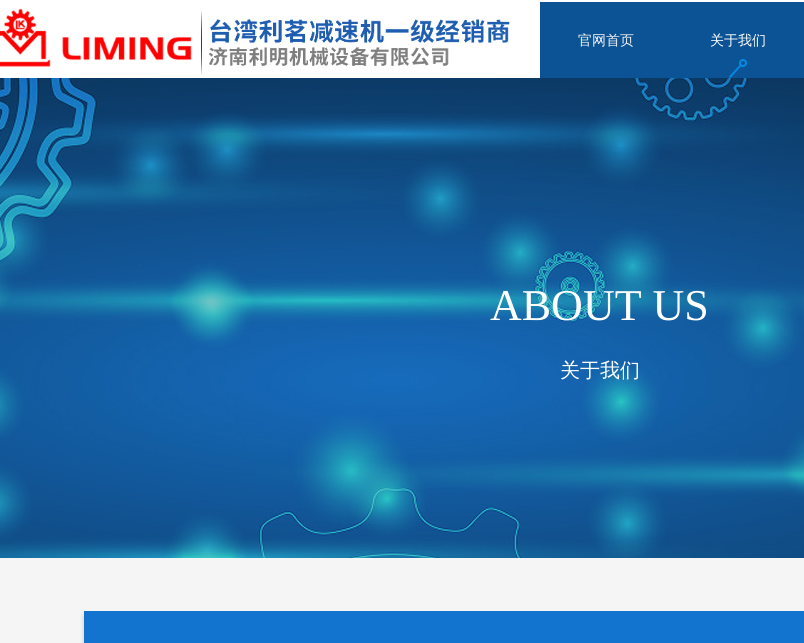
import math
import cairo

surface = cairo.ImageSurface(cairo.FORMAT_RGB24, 804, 643)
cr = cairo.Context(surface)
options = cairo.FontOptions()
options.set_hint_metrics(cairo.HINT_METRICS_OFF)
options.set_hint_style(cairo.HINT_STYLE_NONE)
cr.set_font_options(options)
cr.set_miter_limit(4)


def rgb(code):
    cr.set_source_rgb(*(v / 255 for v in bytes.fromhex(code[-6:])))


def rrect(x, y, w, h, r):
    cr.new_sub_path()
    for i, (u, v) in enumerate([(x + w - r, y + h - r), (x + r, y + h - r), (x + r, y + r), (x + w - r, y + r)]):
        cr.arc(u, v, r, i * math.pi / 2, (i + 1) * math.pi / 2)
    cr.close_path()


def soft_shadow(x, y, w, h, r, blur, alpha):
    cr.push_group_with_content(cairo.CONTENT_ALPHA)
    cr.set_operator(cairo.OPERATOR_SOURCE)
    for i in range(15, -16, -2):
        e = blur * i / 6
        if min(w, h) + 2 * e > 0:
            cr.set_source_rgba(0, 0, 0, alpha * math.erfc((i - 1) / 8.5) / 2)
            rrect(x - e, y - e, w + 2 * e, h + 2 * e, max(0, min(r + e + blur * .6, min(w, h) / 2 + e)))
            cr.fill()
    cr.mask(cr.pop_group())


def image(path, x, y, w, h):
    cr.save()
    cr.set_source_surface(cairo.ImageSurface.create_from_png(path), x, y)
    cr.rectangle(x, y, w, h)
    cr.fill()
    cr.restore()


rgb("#ffffff")
cr.paint()
image("img/1.png", 0, 8, 510, 67)
rgb("#0b5394")
cr.rectangle(540, 2, 264, 76)
cr.fill()
image("img/2.png", 729, 59, 18, 19)
image("img/3.png", 0, 78, 804, 480)
rgb("#f5f5f5")
cr.rectangle(0, 558, 804, 85)
cr.fill()
rgb("#000000")
soft_shadow(84, 616, 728, 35, 0, 2.5, 0.2)
rgb("#1274ce")
cr.rectangle(84, 611, 720, 32)
cr.fill()
cr.select_font_face("WenQuanYi Zen Hei Medium")
cr.set_font_size(14)
rgb("#f3f3f3")
cr.move_to(578, 45)
cr.show_text("官网首页")
rgb("#ffffff")
cr.move_to(710, 45)
cr.show_text("关于我们")
cr.select_font_face("Liberation Serif")
cr.set_font_size(44)
cr.move_to(490, 320)
cr.show_text("ABOUT US")
cr.select_font_face("WenQuanYi Zen Hei Medium")
cr.set_font_size(20)
cr.move_to(560, 377)
cr.show_text("关于我们")
surface.write_to_png("page.png")
